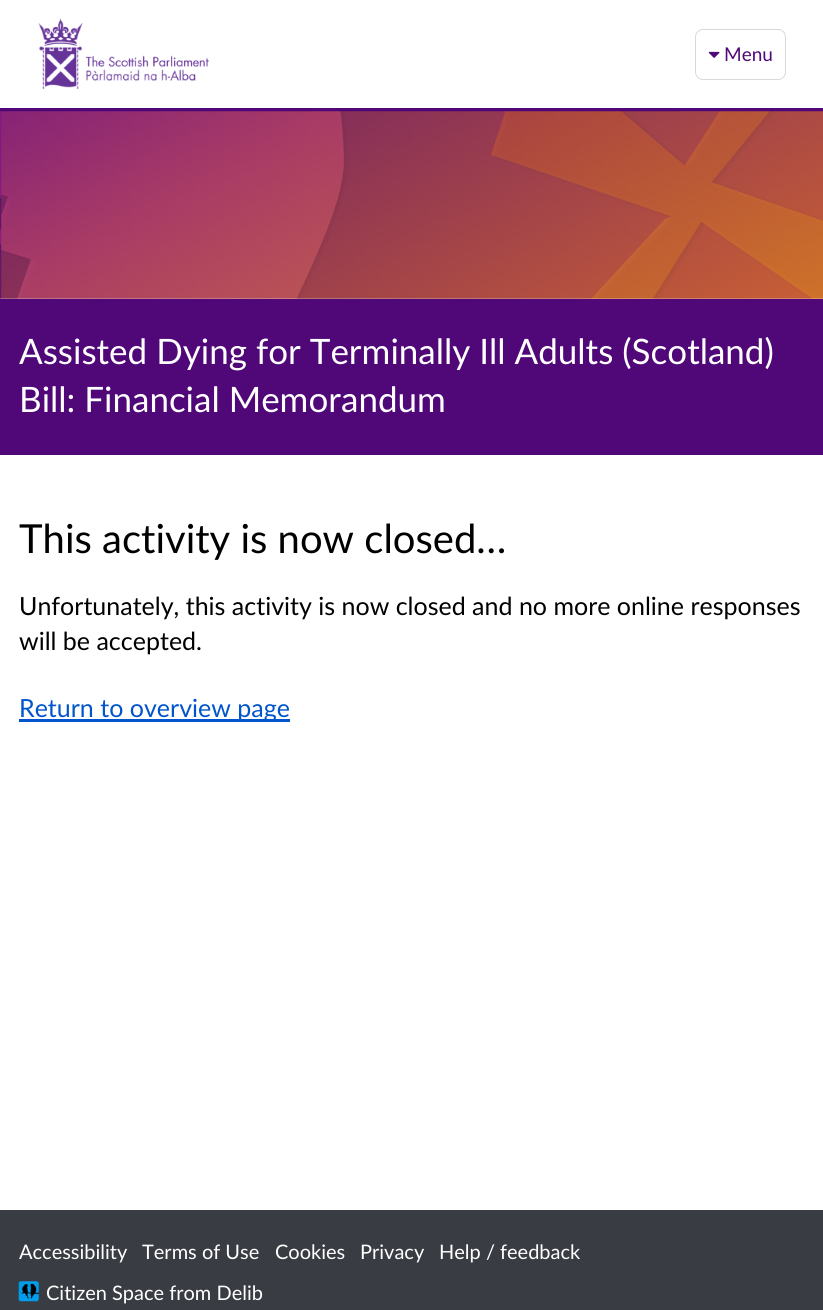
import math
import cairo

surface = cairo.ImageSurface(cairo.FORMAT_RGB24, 823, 1310)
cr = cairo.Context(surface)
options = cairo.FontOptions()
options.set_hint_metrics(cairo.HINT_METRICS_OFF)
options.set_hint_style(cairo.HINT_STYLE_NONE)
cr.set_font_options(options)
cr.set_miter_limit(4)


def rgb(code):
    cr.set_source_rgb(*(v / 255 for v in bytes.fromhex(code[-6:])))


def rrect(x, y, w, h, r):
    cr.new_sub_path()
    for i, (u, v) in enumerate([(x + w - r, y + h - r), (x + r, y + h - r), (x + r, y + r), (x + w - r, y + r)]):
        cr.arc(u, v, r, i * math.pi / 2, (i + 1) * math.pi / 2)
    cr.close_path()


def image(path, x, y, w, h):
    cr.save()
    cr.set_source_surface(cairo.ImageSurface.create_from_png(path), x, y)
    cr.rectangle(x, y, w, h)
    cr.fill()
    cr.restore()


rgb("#ffffff")
cr.paint()
rgb("#500778")
cr.rectangle(0, 108, 823, 4)
cr.fill()
image("img/1.png", 38, 18, 171, 71)
rrect(695.5, 29.5, 90, 50, 7.5)
rgb("#d9d9d9")
cr.set_line_width(1)
cr.stroke()
image("img/2.png", 708, 51, 12, 7)
image("img/3.png", 0, 111, 823, 188)
for x, y, w, h, color in [
    (0, 299, 823, 156, "#500778"),
    (19, 719, 271, 3, "#0055cc"),
    (0, 1210, 823, 100, "#393c43"),
]:
    rgb(color)
    cr.rectangle(x, y, w, h)
    cr.fill()
image("img/4.png", 18, 1281, 21, 21)
cr.select_font_face("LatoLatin")
cr.set_font_size(19)
rgb("#500778")
cr.move_to(724, 61)
cr.show_text("Menu")
cr.set_font_size(35)
rgb("#ffffff")
cr.move_to(19, 364)
cr.show_text("Assisted Dying for Terminally Ill Adults (Scotland)")
cr.move_to(19, 412)
cr.show_text("Bill: Financial Memorandum")
cr.set_font_size(40)
rgb("#000000")
cr.move_to(19, 553)
cr.show_text("This activity is now closed…")
cr.set_font_size(25)
cr.move_to(19, 615)
cr.show_text("Unfortunately, this activity is now closed and no more online responses")
cr.move_to(19, 650)
cr.show_text("will be accepted.")
rgb("#0055cc")
cr.move_to(19, 717)
cr.show_text("Return to overview page")
cr.set_font_size(20)
rgb("#ffffff")
for x, y, s in [
    (19, 1259, "Accessibility"),
    (142, 1259, "Terms of Use"),
    (275, 1259, "Cookies"),
    (360, 1259, "Privacy"),
    (439, 1259, "Help / feedback"),
    (46, 1300, "Citizen Space from Delib"),
]:
    cr.move_to(x, y)
    cr.show_text(s)
surface.write_to_png("page.png")
